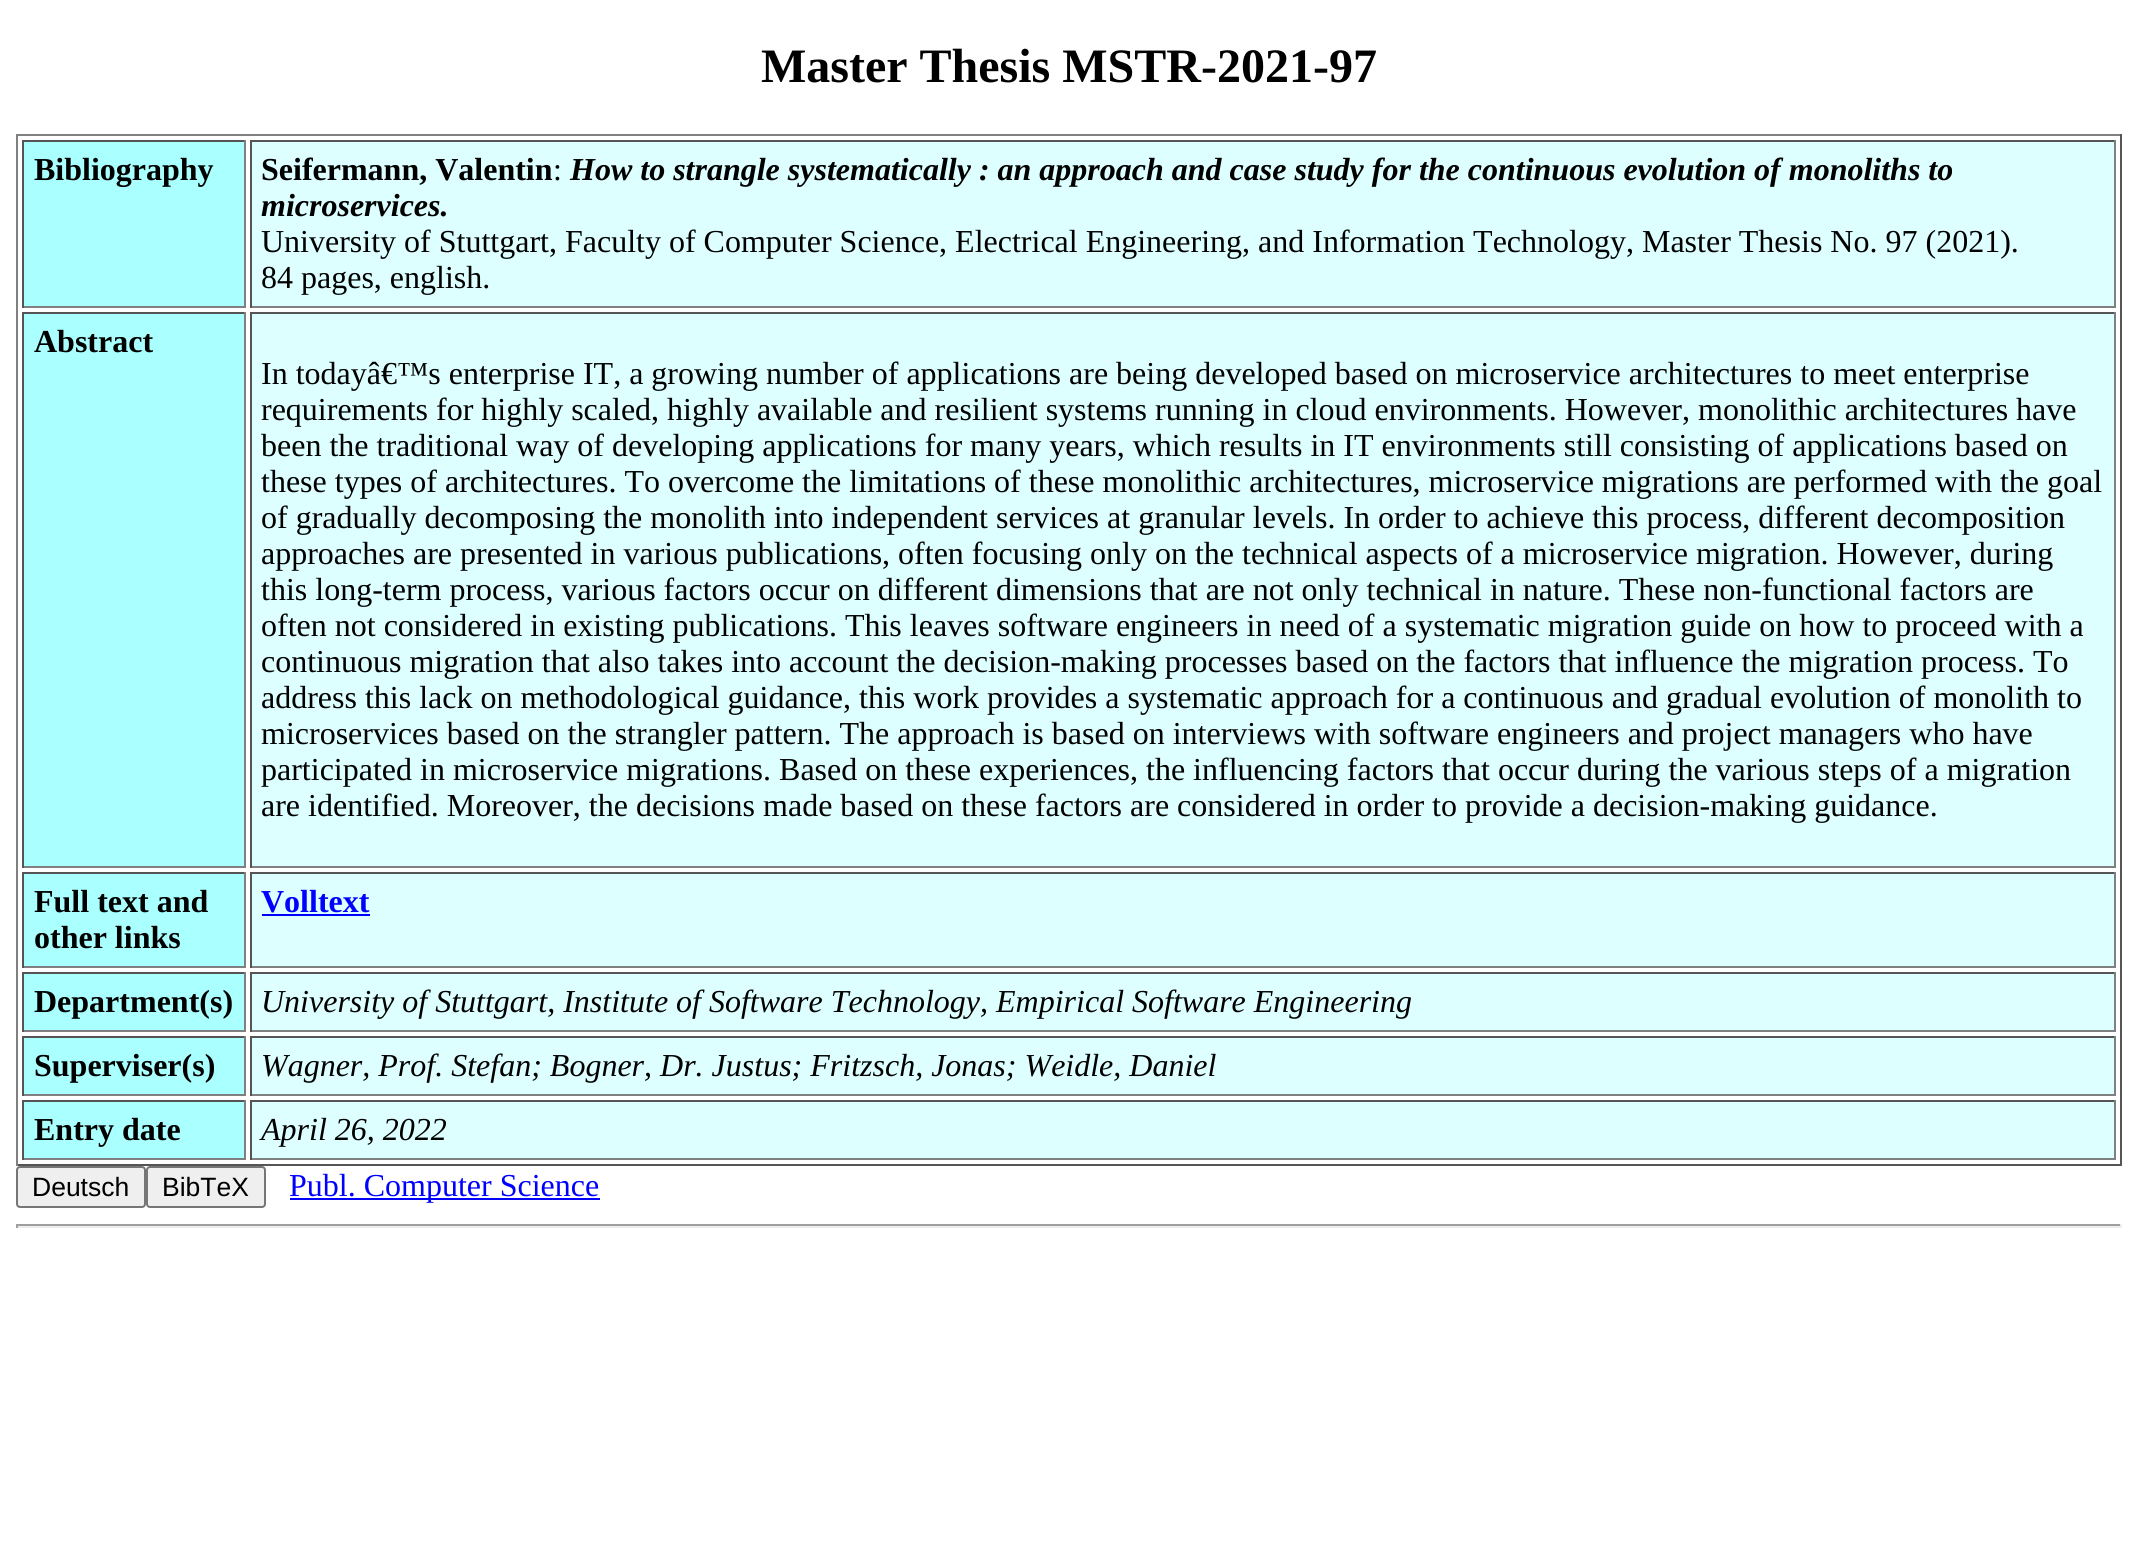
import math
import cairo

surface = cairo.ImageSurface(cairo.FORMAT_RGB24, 2137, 1549)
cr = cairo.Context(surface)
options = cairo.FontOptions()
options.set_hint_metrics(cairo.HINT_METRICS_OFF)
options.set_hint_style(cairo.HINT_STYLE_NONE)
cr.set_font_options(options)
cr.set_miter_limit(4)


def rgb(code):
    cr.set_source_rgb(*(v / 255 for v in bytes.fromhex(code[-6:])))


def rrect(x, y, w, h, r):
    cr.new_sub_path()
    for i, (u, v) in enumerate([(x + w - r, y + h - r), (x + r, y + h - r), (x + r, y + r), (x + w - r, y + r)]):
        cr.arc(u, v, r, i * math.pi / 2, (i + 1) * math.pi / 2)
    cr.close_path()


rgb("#ffffff")
cr.paint()
for x, y, w, h, color in [
    (16, 134, 2106, 2, "#808080"),
    (2120, 134, 2, 1032, "#555555"),
    (16, 1164, 2106, 2, "#555555"),
    (16, 134, 2, 1032, "#808080"),
    (24, 142, 220, 164, "#aaffff"),
    (22, 140, 224, 2, "#555555"),
    (244, 140, 2, 168, "#808080"),
    (22, 306, 224, 2, "#808080"),
    (22, 140, 2, 168, "#555555"),
    (252, 142, 1862, 164, "#ddffff"),
    (250, 140, 1866, 2, "#555555"),
    (2114, 140, 2, 168, "#808080"),
    (250, 306, 1866, 2, "#808080"),
    (250, 140, 2, 168, "#555555"),
    (24, 314, 220, 552, "#aaffff"),
    (22, 312, 224, 2, "#555555"),
    (244, 312, 2, 556, "#808080"),
    (22, 866, 224, 2, "#808080"),
    (22, 312, 2, 556, "#555555"),
    (252, 314, 1862, 552, "#ddffff"),
    (250, 312, 1866, 2, "#555555"),
    (2114, 312, 2, 556, "#808080"),
    (250, 866, 1866, 2, "#808080"),
    (250, 312, 2, 556, "#555555"),
    (24, 874, 220, 92, "#aaffff"),
    (22, 872, 224, 2, "#555555"),
    (244, 872, 2, 96, "#808080"),
    (22, 966, 224, 2, "#808080"),
    (22, 872, 2, 96, "#555555"),
    (252, 874, 1862, 92, "#ddffff"),
    (250, 872, 1866, 2, "#555555"),
    (2114, 872, 2, 96, "#808080"),
    (250, 966, 1866, 2, "#808080"),
    (250, 872, 2, 96, "#555555"),
    (262, 914, 108, 2, "#0000ff"),
    (24, 974, 220, 56, "#aaffff"),
    (22, 972, 224, 2, "#555555"),
    (244, 972, 2, 60, "#808080"),
    (22, 1030, 224, 2, "#808080"),
    (22, 972, 2, 60, "#555555"),
    (252, 974, 1862, 56, "#ddffff"),
    (250, 972, 1866, 2, "#555555"),
    (2114, 972, 2, 60, "#808080"),
    (250, 1030, 1866, 2, "#808080"),
    (250, 972, 2, 60, "#555555"),
    (24, 1038, 220, 56, "#aaffff"),
    (22, 1036, 224, 2, "#555555"),
    (244, 1036, 2, 60, "#808080"),
    (22, 1094, 224, 2, "#808080"),
    (22, 1036, 2, 60, "#555555"),
    (252, 1038, 1862, 56, "#ddffff"),
    (250, 1036, 1866, 2, "#555555"),
    (2114, 1036, 2, 60, "#808080"),
    (250, 1094, 1866, 2, "#808080"),
    (250, 1036, 2, 60, "#555555"),
    (24, 1102, 220, 56, "#aaffff"),
    (22, 1100, 224, 2, "#555555"),
    (244, 1100, 2, 60, "#808080"),
    (22, 1158, 224, 2, "#808080"),
    (22, 1100, 2, 60, "#555555"),
    (252, 1102, 1862, 56, "#ddffff"),
    (250, 1100, 1866, 2, "#555555"),
    (2114, 1100, 2, 60, "#808080"),
    (250, 1158, 1866, 2, "#808080"),
    (250, 1100, 2, 60, "#555555"),
]:
    rgb(color)
    cr.rectangle(x, y, w, h)
    cr.fill()
rgb("#efefef")
rrect(17, 1167, 128, 40, 3)
cr.fill_preserve()
rgb("#767676")
cr.stroke()
rgb("#efefef")
rrect(147, 1167, 118, 40, 3)
cr.fill_preserve()
rgb("#767676")
cr.stroke()
for x, y, w, h, color in [
    (290, 1198, 310, 2, "#0000ff"),
    (16, 1224, 2106, 2, "#9f9f9f"),
    (2120, 1224, 2, 4, "#eeeeee"),
    (16, 1226, 2106, 2, "#eeeeee"),
    (16, 1224, 2, 4, "#9f9f9f"),
]:
    rgb(color)
    cr.rectangle(x, y, w, h)
    cr.fill()
cr.select_font_face("Liberation Serif", cairo.FONT_SLANT_NORMAL, cairo.FONT_WEIGHT_BOLD)
cr.set_font_size(48)
rgb("#000000")
cr.move_to(761, 82)
cr.show_text("Master Thesis MSTR-2021-97")
cr.set_font_size(32)
cr.move_to(34, 180)
cr.show_text("Bibliography")
cr.move_to(261, 180)
cr.show_text("Seifermann, Valentin")
cr.select_font_face("Liberation Serif")
cr.move_to(553, 180)
cr.show_text(":")
cr.select_font_face("Liberation Serif", cairo.FONT_SLANT_ITALIC, cairo.FONT_WEIGHT_BOLD)
cr.move_to(570, 180)
cr.show_text("How to strangle systematically : an approach and case study for the continuous evolution of monoliths to")
cr.move_to(261, 216)
cr.show_text("microservices.")
cr.select_font_face("Liberation Serif")
cr.move_to(261, 252)
cr.show_text("University of Stuttgart, Faculty of Computer Science, Electrical Engineering, and Information Technology, Master Thesis No. 97 (2021).")
cr.move_to(261, 288)
cr.show_text("84 pages, english.")
cr.select_font_face("Liberation Serif", cairo.FONT_SLANT_NORMAL, cairo.FONT_WEIGHT_BOLD)
cr.move_to(34, 352)
cr.show_text("Abstract")
cr.select_font_face("Liberation Serif")
for x, y, s in [
    (261, 384, "In todayâ€™s enterprise IT, a growing number of applications are being developed based on microservice architectures to meet enterprise"),
    (261, 420, "requirements for highly scaled, highly available and resilient systems running in cloud environments. However, monolithic architectures have"),
    (261, 456, "been the traditional way of developing applications for many years, which results in IT environments still consisting of applications based on"),
    (261, 492, "these types of architectures. To overcome the limitations of these monolithic architectures, microservice migrations are performed with the goal"),
    (261, 528, "of gradually decomposing the monolith into independent services at granular levels. In order to achieve this process, different decomposition"),
    (261, 564, "approaches are presented in various publications, often focusing only on the technical aspects of a microservice migration. However, during"),
    (261, 600, "this long-term process, various factors occur on different dimensions that are not only technical in nature. These non-functional factors are"),
    (261, 636, "often not considered in existing publications. This leaves software engineers in need of a systematic migration guide on how to proceed with a"),
    (261, 672, "continuous migration that also takes into account the decision-making processes based on the factors that influence the migration process. To"),
    (261, 708, "address this lack on methodological guidance, this work provides a systematic approach for a continuous and gradual evolution of monolith to"),
    (261, 744, "microservices based on the strangler pattern. The approach is based on interviews with software engineers and project managers who have"),
    (261, 780, "participated in microservice migrations. Based on these experiences, the influencing factors that occur during the various steps of a migration"),
    (261, 816, "are identified. Moreover, the decisions made based on these factors are considered in order to provide a decision-making guidance."),
]:
    cr.move_to(x, y)
    cr.show_text(s)
cr.select_font_face("Liberation Serif", cairo.FONT_SLANT_NORMAL, cairo.FONT_WEIGHT_BOLD)
cr.move_to(34, 912)
cr.show_text("Full text and")
cr.move_to(34, 948)
cr.show_text("other links")
rgb("#0000ff")
cr.move_to(261, 912)
cr.show_text("Volltext")
rgb("#000000")
cr.move_to(34, 1012)
cr.show_text("Department(s)")
cr.select_font_face("Liberation Serif", cairo.FONT_SLANT_ITALIC)
cr.move_to(261, 1012)
cr.show_text("University of Stuttgart, Institute of Software Technology, Empirical Software Engineering")
cr.select_font_face("Liberation Serif", cairo.FONT_SLANT_NORMAL, cairo.FONT_WEIGHT_BOLD)
cr.move_to(34, 1076)
cr.show_text("Superviser(s)")
cr.select_font_face("Liberation Serif", cairo.FONT_SLANT_ITALIC)
cr.move_to(261, 1076)
cr.show_text("Wagner, Prof. Stefan; Bogner, Dr. Justus; Fritzsch, Jonas; Weidle, Daniel")
cr.select_font_face("Liberation Serif", cairo.FONT_SLANT_NORMAL, cairo.FONT_WEIGHT_BOLD)
cr.move_to(34, 1140)
cr.show_text("Entry date")
cr.select_font_face("Liberation Serif", cairo.FONT_SLANT_ITALIC)
cr.move_to(261, 1140)
cr.show_text("April 26, 2022")
cr.select_font_face("Liberation Sans")
cr.set_font_size(26.5)
cr.move_to(32, 1196)
cr.show_text("Deutsch")
cr.move_to(162, 1196)
cr.show_text("BibTeX")
cr.select_font_face("Liberation Serif")
cr.set_font_size(32)
rgb("#0000ff")
cr.move_to(289, 1196)
cr.show_text("Publ. Computer Science")
surface.write_to_png("page.png")
